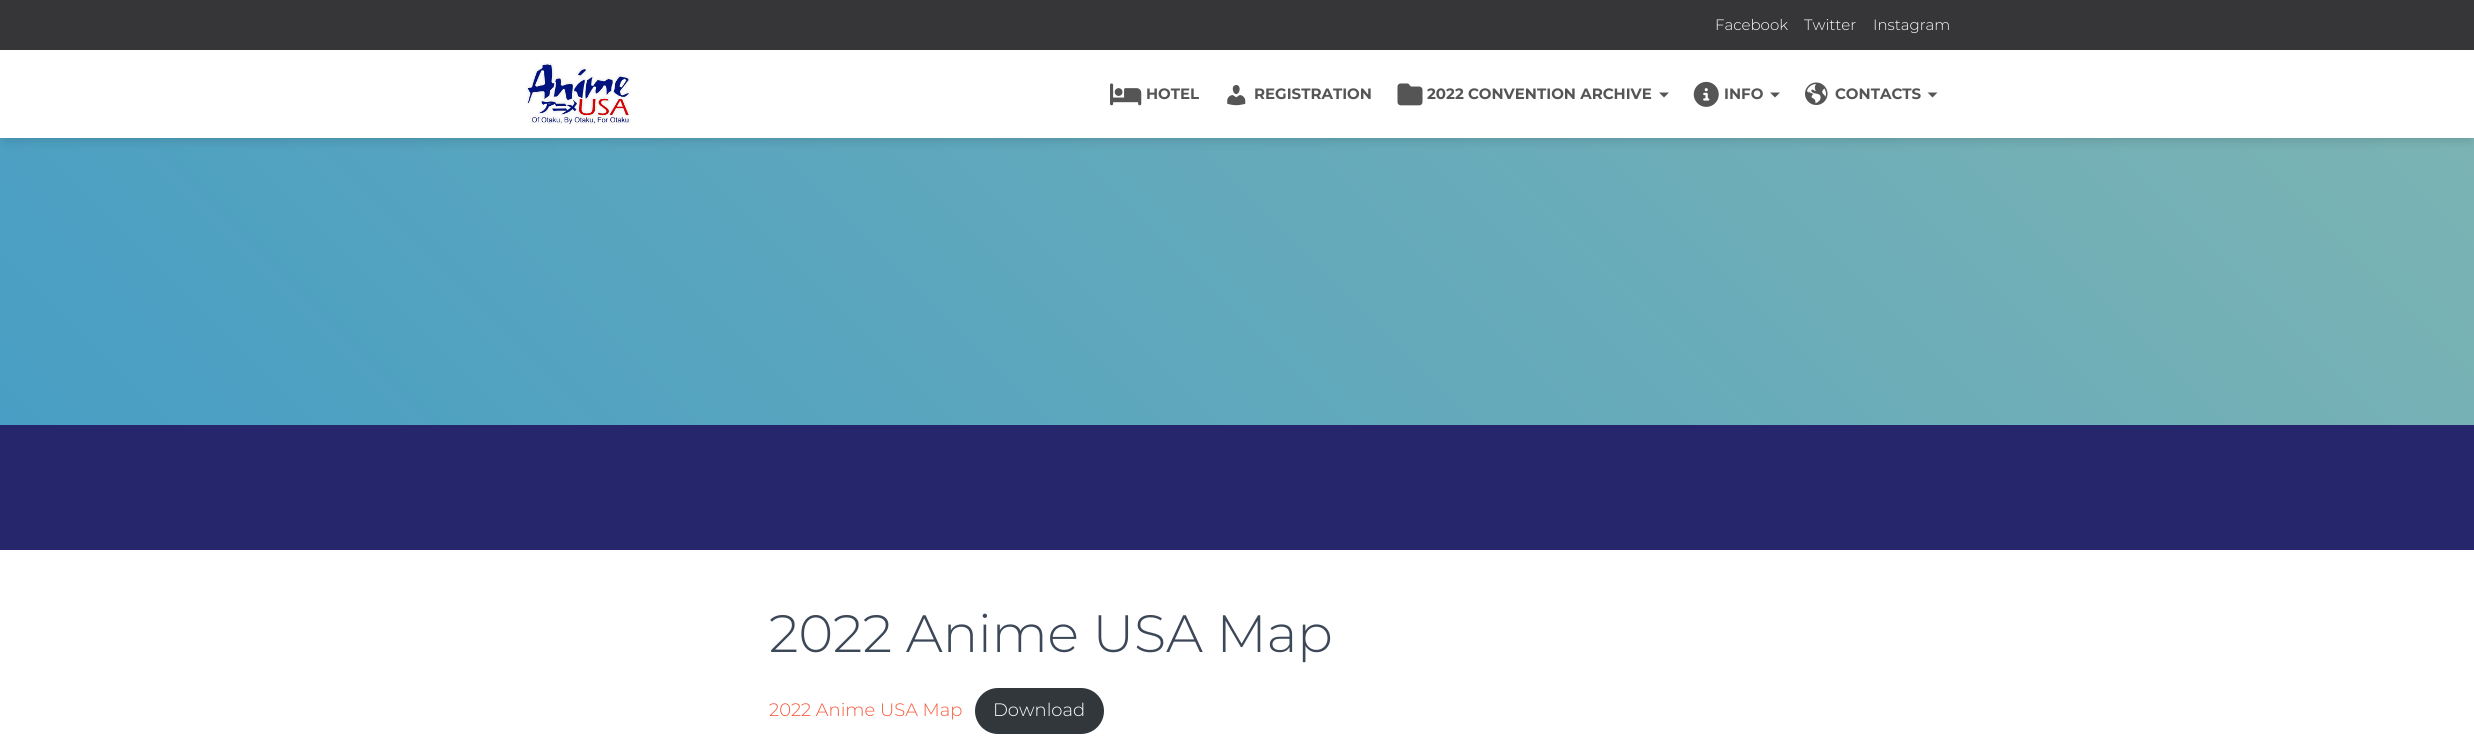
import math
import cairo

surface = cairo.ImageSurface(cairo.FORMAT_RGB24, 2474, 752)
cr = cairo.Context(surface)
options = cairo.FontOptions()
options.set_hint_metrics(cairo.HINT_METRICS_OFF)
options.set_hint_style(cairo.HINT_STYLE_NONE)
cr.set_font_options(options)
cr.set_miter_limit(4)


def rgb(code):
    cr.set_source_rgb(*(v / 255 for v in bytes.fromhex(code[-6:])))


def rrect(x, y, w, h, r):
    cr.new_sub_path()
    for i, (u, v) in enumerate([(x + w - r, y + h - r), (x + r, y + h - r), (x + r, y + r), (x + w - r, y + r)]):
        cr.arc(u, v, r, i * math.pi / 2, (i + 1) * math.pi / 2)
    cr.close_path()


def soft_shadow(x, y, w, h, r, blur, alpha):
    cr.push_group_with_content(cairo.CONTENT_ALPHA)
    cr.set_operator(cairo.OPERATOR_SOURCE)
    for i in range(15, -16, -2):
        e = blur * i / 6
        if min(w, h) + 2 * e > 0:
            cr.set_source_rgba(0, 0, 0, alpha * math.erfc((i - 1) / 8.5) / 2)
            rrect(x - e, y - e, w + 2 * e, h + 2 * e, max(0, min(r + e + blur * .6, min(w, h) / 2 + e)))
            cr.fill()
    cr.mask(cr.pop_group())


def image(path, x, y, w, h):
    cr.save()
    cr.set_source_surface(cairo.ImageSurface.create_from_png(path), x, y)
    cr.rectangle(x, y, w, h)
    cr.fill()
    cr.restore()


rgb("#25266c")
cr.paint()
rgb("#363537")
cr.rectangle(0, 0, 2474, 50)
cr.fill()
gradient = cairo.LinearGradient(525, 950, 1950, -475)
gradient.add_color_stop_rgba(0, 0.282, 0.62, 0.769, 1)
gradient.add_color_stop_rgba(1, 0.49, 0.706, 0.702, 1)
cr.set_source(gradient)
cr.rectangle(0, 138, 2474, 287)
cr.fill()
rgb("#000000")
soft_shadow(5, 63, 2465, 77, 0, 6, 0.15)
rgb("#ffffff")
cr.rectangle(0, 50, 2474, 88)
cr.fill()
image("img/1.png", 526, 63, 105, 62)
image("img/2.png", 1110, 83, 32, 23)
image("img/3.png", 1227, 85, 19, 21)
image("img/4.png", 1397, 83, 26, 23)
rgb("#555555")
cr.new_path()
cr.move_to(1659, 92.5)
cr.line_to(1669, 92.5)
cr.line_to(1664, 97.5)
cr.close_path()
cr.fill()
image("img/5.png", 1693, 81, 26, 26)
cr.new_path()
cr.move_to(1770, 92.5)
cr.line_to(1780, 92.5)
cr.line_to(1775, 97.5)
cr.close_path()
cr.fill()
image("img/6.png", 1805, 82, 23, 23)
cr.new_path()
cr.move_to(1927.5, 92.5)
cr.line_to(1937.5, 92.5)
cr.line_to(1932.5, 97.5)
cr.close_path()
cr.fill()
rgb("#ffffff")
cr.rectangle(0, 550, 2474, 202)
cr.fill()
rgb("#32373c")
rrect(975, 688, 129, 46, 23)
cr.fill()
cr.select_font_face("Montserrat Light")
cr.set_font_size(15)
rgb("#ffffff")
for x, y, s in [
    (1715, 30, "Facebook"),
    (1804, 30, "Twitter"),
    (1873, 30, "Instagram"),
]:
    cr.move_to(x, y)
    cr.show_text(s)
cr.select_font_face("Montserrat", cairo.FONT_SLANT_NORMAL, cairo.FONT_WEIGHT_BOLD)
rgb("#555555")
for x, y, s in [
    (1146, 99, "HOTEL"),
    (1254, 99, "REGISTRATION"),
    (1427, 99, "2022 CONVENTION ARCHIVE"),
    (1724, 99, "INFO"),
    (1835, 99, "CONTACTS"),
]:
    cr.move_to(x, y)
    cr.show_text(s)
cr.select_font_face("Montserrat Light")
cr.set_font_size(52.5)
rgb("#3c4858")
cr.move_to(769, 652)
cr.show_text("2022 Anime USA Map")
cr.set_font_size(18)
rgb("#f5593d")
cr.move_to(769, 716)
cr.show_text("2022 Anime USA Map")
rgb("#ffffff")
cr.move_to(993, 716)
cr.show_text("Download")
surface.write_to_png("page.png")
